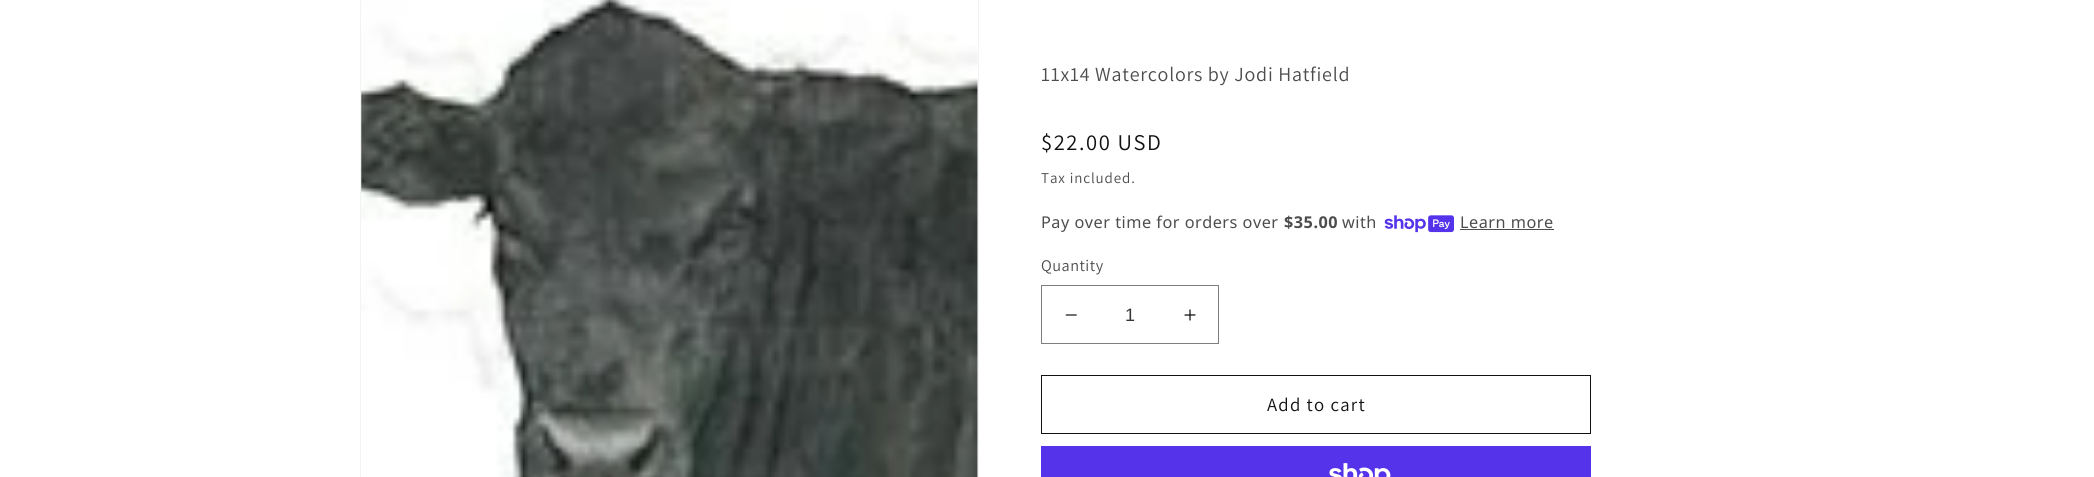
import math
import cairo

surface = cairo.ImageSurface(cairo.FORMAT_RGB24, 2094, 477)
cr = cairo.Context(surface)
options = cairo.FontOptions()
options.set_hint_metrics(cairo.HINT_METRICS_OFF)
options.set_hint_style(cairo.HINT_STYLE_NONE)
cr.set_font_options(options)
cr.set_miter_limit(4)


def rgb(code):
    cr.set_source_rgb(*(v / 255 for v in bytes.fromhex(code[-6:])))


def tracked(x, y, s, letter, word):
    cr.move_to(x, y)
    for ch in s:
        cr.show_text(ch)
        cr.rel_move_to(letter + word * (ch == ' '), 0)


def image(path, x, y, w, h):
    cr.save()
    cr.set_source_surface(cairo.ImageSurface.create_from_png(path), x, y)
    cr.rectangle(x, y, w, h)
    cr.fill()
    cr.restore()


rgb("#ffffff")
cr.paint()
cr.rectangle(360.5, -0.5, 618, 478)
rgb("#f3f3f3")
cr.set_line_width(1)
cr.stroke()
image("img/1.png", 361, 0, 617, 477)
image("img/2.png", 1384, 215, 70, 18)
rgb("#4d4d4d")
cr.rectangle(1460, 229, 94, 1)
cr.fill()
image("img/3.png", 1065, 314, 12, 2)
image("img/4.png", 1184, 309, 12, 12)
cr.rectangle(1041.5, 285.5, 177, 58)
rgb("#7d7d7d")
cr.stroke()
cr.rectangle(1041.5, 375.5, 549, 58)
rgb("#121212")
cr.stroke()
rgb("#5433eb")
cr.rectangle(1041, 446, 550, 31)
cr.fill()
image("img/5.png", 1329, 463, 62, 14)
cr.select_font_face("Assistant")
cr.set_font_size(20)
rgb("#4d4d4d")
tracked(1041, 81, "11x14 Watercolors by Jodi Hatfield", 0.75, 0)
cr.set_font_size(22.5)
rgb("#121212")
tracked(1041, 150, "$22.00 USD", 1.6, 0)
cr.set_font_size(15)
rgb("#4d4d4d")
tracked(1041, 183, "Tax included.", 0.9, 0)
cr.select_font_face("Noto Sans")
cr.set_font_size(16.25)
tracked(1041, 228, "Pay over time for orders over", 0.5, 0)
cr.select_font_face("Noto Sans", cairo.FONT_SLANT_NORMAL, cairo.FONT_WEIGHT_BOLD)
tracked(1284, 228, "$35.00", 0.5, 0)
cr.select_font_face("Noto Sans")
tracked(1342, 228, "with", 0.5, 0)
tracked(1460, 228, "Learn more", 0.5, 0)
cr.select_font_face("Assistant")
tracked(1041, 271, "Quantity", 0.5, 0)
cr.select_font_face("Liberation Sans")
cr.set_font_size(18)
rgb("#363636")
cr.move_to(1125, 321)
cr.show_text("1")
cr.select_font_face("Assistant")
cr.set_font_size(18.75)
rgb("#121212")
tracked(1267, 411, "Add to cart", 1.25, 0)
surface.write_to_png("page.png")
